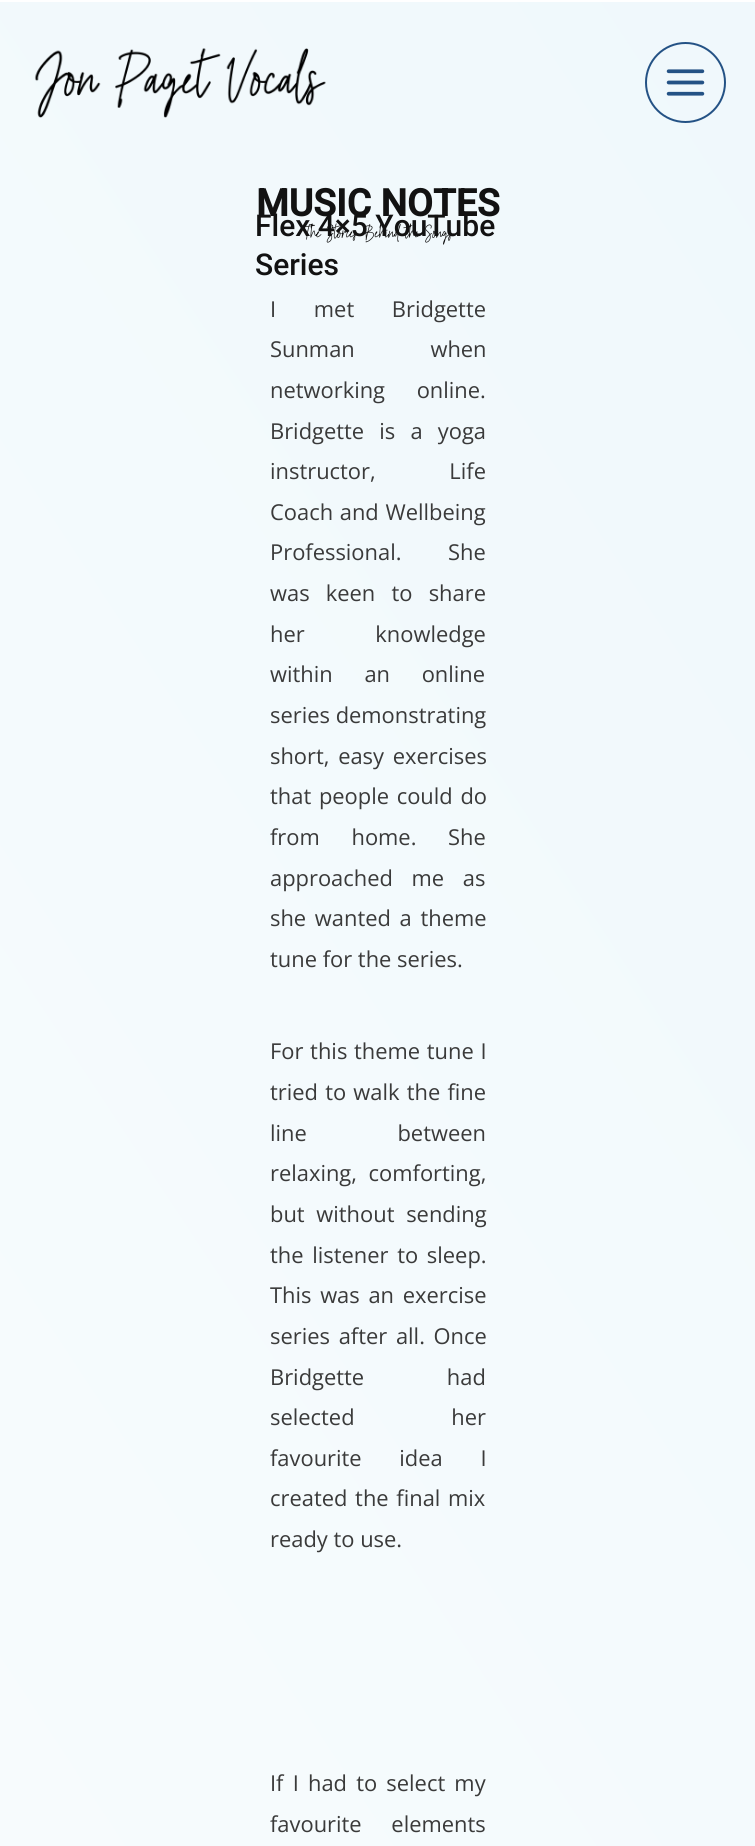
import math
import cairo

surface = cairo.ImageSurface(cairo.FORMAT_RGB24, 755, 1846)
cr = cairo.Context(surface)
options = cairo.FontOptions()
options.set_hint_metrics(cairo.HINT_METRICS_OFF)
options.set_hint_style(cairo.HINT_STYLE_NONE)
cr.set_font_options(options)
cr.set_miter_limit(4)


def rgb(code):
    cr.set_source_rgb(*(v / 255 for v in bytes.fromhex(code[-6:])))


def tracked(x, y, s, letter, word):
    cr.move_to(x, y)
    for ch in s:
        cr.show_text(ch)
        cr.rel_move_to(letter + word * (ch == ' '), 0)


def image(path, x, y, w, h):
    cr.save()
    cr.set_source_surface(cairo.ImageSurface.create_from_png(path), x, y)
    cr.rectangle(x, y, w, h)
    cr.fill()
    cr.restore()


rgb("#ffffff")
cr.paint()
gradient = cairo.LinearGradient(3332, 1.7, -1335, 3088)
gradient.add_color_stop_rgba(0, 0.902, 0.957, 0.98, 1)
gradient.add_color_stop_rgba(1, 1, 1, 1, 1)
cr.set_source(gradient)
cr.new_path()
cr.move_to(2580, 2)
cr.curve_to(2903, 2, 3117, 326, 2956, 570)
cr.line_to(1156, 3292)
cr.curve_to(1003, 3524, 620, 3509, 458, 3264)
cr.line_to(-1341, 543)
cr.curve_to(-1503, 299, -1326, 2, -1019, 2)
cr.close_path()
cr.fill()
image("img/1.png", 34, 48, 292, 70)
cr.arc(685.5, 82.5, 39.5, 0, 2 * math.pi)
rgb("#245285")
cr.stroke()
image("img/2.png", 666, 69, 39, 27)
cr.select_font_face("Roboto", cairo.FONT_SLANT_NORMAL, cairo.FONT_WEIGHT_BOLD)
cr.set_font_size(37.5)
rgb("#121212")
cr.move_to(256, 216)
cr.show_text("MUSIC NOTES")
cr.select_font_face("Roboto Medium")
cr.set_font_size(30)
cr.move_to(255, 275)
cr.show_text("Series")
cr.select_font_face("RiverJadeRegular")
cr.set_font_size(24)
cr.move_to(303, 238)
cr.show_text("The Stories Behind the Songs")
cr.select_font_face("Roboto Medium")
cr.set_font_size(30)
cr.move_to(255, 236)
cr.show_text("Flex 4×5 YouTube")
cr.select_font_face("Open Sans")
cr.set_font_size(21.9)
rgb("#3a3a3a")
tracked(270, 317, "I met Bridgette", 0, 32)
tracked(270, 357, "Sunman when", 0, 70)
tracked(270, 398, "networking online.", 0, 26)
tracked(270, 439, "Bridgette is a yoga", 0, 9.5)
tracked(270, 479, "instructor, Life", 0, 68)
tracked(270, 520, "Coach and Wellbeing", 0, 1)
tracked(270, 560, "Professional. She", 0, 41)
tracked(270, 601, "was keen to share", 0, 10.5)
tracked(270, 642, "her knowledge", 0, 65)
tracked(270, 682, "within an online", 0, 26)
cr.move_to(270, 723)
cr.show_text("series demonstrating")
tracked(270, 764, "short, easy exercises", 0, 3)
tracked(270, 804, "that people could do", 0, 2)
tracked(270, 845, "from home. She", 0, 26)
tracked(270, 886, "approached me as", 0, 13)
tracked(270, 926, "she wanted a theme", 0, 3)
cr.move_to(270, 967)
cr.show_text("tune for the series.")
tracked(270, 1059, "For this theme tune I", 0, 1)
tracked(270, 1100, "tried to walk the fine", 0, 1.5)
tracked(270, 1141, "line between", 0, 85)
tracked(270, 1181, "relaxing, comforting,", 0, 6)
tracked(270, 1222, "but without sending", 0, 6)
for x, y, s in [
    (270, 1263, "the listener to sleep."),
    (270, 1303, "This was an exercise"),
    (270, 1344, "series after all. Once"),
]:
    tracked(x, y, s, 0, 3)
tracked(270, 1385, "Bridgette had", 0, 77)
tracked(270, 1425, "selected her", 0, 91)
tracked(270, 1466, "favourite idea I", 0, 32)
tracked(270, 1506, "created the final mix", 0, 2)
cr.move_to(270, 1547)
cr.show_text("ready to use.")
tracked(270, 1791, "If I had to select my", 0, 3.5)
tracked(270, 1832, "favourite elements", 0, 24)
surface.write_to_png("page.png")
